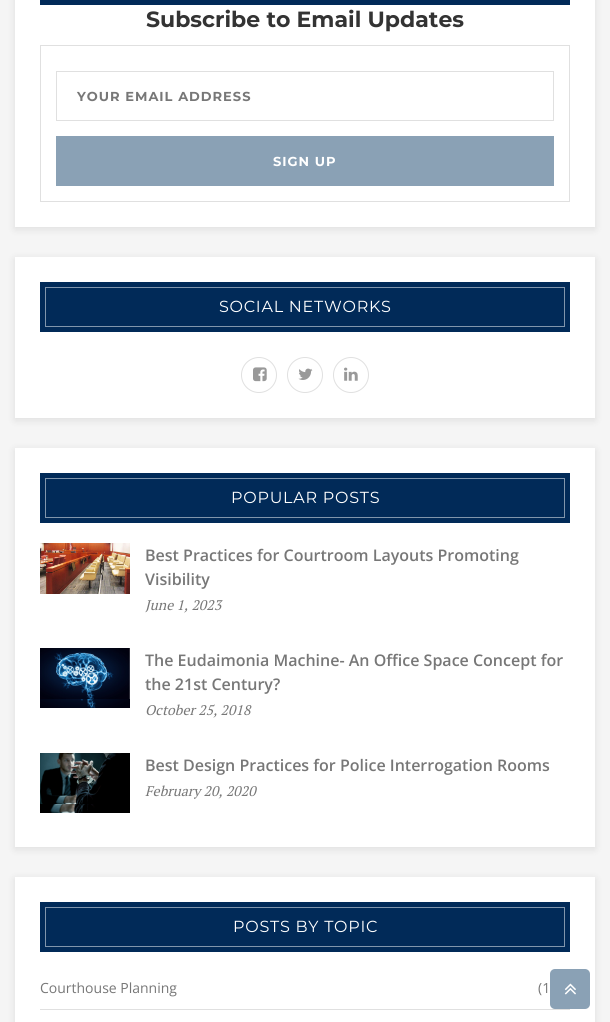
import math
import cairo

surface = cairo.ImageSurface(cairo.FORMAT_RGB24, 610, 1022)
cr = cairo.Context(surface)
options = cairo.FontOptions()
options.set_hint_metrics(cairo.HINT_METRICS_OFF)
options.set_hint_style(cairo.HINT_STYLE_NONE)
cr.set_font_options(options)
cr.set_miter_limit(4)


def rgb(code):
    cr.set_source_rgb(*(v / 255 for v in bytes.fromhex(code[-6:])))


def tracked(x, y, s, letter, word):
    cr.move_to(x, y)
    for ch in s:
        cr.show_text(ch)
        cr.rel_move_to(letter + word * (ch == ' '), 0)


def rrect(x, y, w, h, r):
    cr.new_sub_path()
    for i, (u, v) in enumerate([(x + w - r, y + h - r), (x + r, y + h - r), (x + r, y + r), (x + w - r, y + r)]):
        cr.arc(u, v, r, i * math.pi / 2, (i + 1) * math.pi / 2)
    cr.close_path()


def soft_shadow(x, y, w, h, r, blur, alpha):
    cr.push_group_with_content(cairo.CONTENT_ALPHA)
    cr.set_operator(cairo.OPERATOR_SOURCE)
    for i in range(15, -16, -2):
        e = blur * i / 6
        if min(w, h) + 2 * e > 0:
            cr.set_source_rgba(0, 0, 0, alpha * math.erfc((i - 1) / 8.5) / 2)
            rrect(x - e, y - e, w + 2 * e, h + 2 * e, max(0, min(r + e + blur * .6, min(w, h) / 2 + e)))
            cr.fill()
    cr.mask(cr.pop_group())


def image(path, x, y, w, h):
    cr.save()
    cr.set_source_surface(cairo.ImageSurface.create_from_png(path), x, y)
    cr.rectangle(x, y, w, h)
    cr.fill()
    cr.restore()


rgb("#f5f5f5")
cr.paint()
rgb("#000000")
soft_shadow(15, -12, 580, 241, 0, 4, 0.1)
rgb("#ffffff")
cr.rectangle(15, 0, 580, 227)
cr.fill()
rgb("#012a58")
cr.rectangle(40, 0, 530, 5)
cr.fill()
cr.rectangle(40.5, 45.5, 529, 156)
rgb("#e0e0e0")
cr.set_line_width(1)
cr.stroke()
cr.rectangle(56.5, 71.5, 497, 49)
cr.stroke()
rgb("#8aa1b5")
cr.rectangle(56, 136, 498, 50)
cr.fill()
rgb("#000000")
soft_shadow(15, 259, 580, 161, 0, 4, 0.1)
rgb("#ffffff")
cr.rectangle(15, 257, 580, 161)
cr.fill()
rgb("#012a58")
cr.rectangle(40, 282, 530, 50)
cr.fill()
cr.rectangle(45.5, 287.5, 519, 39)
rgb("#8095ac")
cr.stroke()
cr.arc(259, 375, 17.5, 0, 2 * math.pi)
rgb("#e0e0e0")
cr.stroke()
image("img/1.png", 253, 367, 14, 15)
cr.arc(305, 375, 17.5, 0, 2 * math.pi)
cr.stroke()
image("img/2.png", 298, 368, 15, 12)
cr.arc(351, 375, 17.5, 0, 2 * math.pi)
cr.stroke()
image("img/3.png", 344, 367, 14, 14)
rgb("#000000")
soft_shadow(15, 450, 580, 399, 0, 4, 0.1)
rgb("#ffffff")
cr.rectangle(15, 448, 580, 399)
cr.fill()
rgb("#012a58")
cr.rectangle(40, 473, 530, 50)
cr.fill()
cr.rectangle(45.5, 478.5, 519, 39)
rgb("#8095ac")
cr.stroke()
image("img/4.png", 40, 543, 90, 51)
image("img/5.png", 40, 699, 90, 9)
image("img/6.png", 40, 648, 90, 51)
image("img/7.png", 40, 753, 90, 60)
image("img/8.png", 40, 753, 88, 51)
rgb("#000000")
soft_shadow(15, 879, 580, 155, 0, 4, 0.1)
rgb("#ffffff")
cr.rectangle(15, 877, 580, 145)
cr.fill()
rgb("#012a58")
cr.rectangle(40, 902, 530, 50)
cr.fill()
cr.rectangle(45.5, 907.5, 519, 39)
rgb("#8095ac")
cr.stroke()
rgb("#e0e0e0")
cr.rectangle(40, 1009, 530, 1)
cr.fill()
rgb("#8aa1b5")
rrect(550, 969, 40, 40, 5)
cr.fill()
image("img/9.png", 564, 983, 12, 12)
cr.select_font_face("Montserrat", cairo.FONT_SLANT_NORMAL, cairo.FONT_WEIGHT_BOLD)
cr.set_font_size(22)
rgb("#333333")
cr.move_to(146, 27)
cr.show_text("Subscribe to Email Updates")
cr.set_font_size(13)
rgb("#777777")
tracked(77, 101, "YOUR EMAIL ADDRESS", 1, 0)
rgb("#ffffff")
tracked(273, 166, "SIGN UP", 1, 0)
cr.select_font_face("Montserrat")
cr.set_font_size(16)
tracked(219, 312, "SOCIAL NETWORKS", 0.75, 0)
tracked(231, 503, "POPULAR POSTS", 0.75, 0)
cr.select_font_face("Open Sans SemiBold")
rgb("#777777")
cr.move_to(145, 561)
cr.show_text("Best Practices for Courtroom Layouts Promoting")
cr.move_to(145, 585)
cr.show_text("Visibility")
cr.select_font_face("PT Serif", cairo.FONT_SLANT_ITALIC)
cr.set_font_size(14)
cr.move_to(145, 610)
cr.show_text("June 1, 2023")
cr.select_font_face("Open Sans SemiBold")
cr.set_font_size(16)
cr.move_to(145, 666)
cr.show_text("The Eudaimonia Machine- An Office Space Concept for")
cr.move_to(145, 690)
cr.show_text("the 21st Century?")
cr.select_font_face("PT Serif", cairo.FONT_SLANT_ITALIC)
cr.set_font_size(14)
cr.move_to(145, 715)
cr.show_text("October 25, 2018")
cr.select_font_face("Open Sans SemiBold")
cr.set_font_size(16)
cr.move_to(145, 771)
cr.show_text("Best Design Practices for Police Interrogation Rooms")
cr.select_font_face("PT Serif", cairo.FONT_SLANT_ITALIC)
cr.set_font_size(14)
cr.move_to(145, 796)
cr.show_text("February 20, 2020")
cr.select_font_face("Montserrat")
cr.set_font_size(16)
rgb("#ffffff")
tracked(233, 932, "POSTS BY TOPIC", 0.75, 0)
cr.select_font_face("Open Sans")
cr.set_font_size(14)
rgb("#777777")
cr.move_to(40, 993)
cr.show_text("Courthouse Planning")
cr.move_to(538, 993)
cr.show_text("(1")
surface.write_to_png("page.png")
